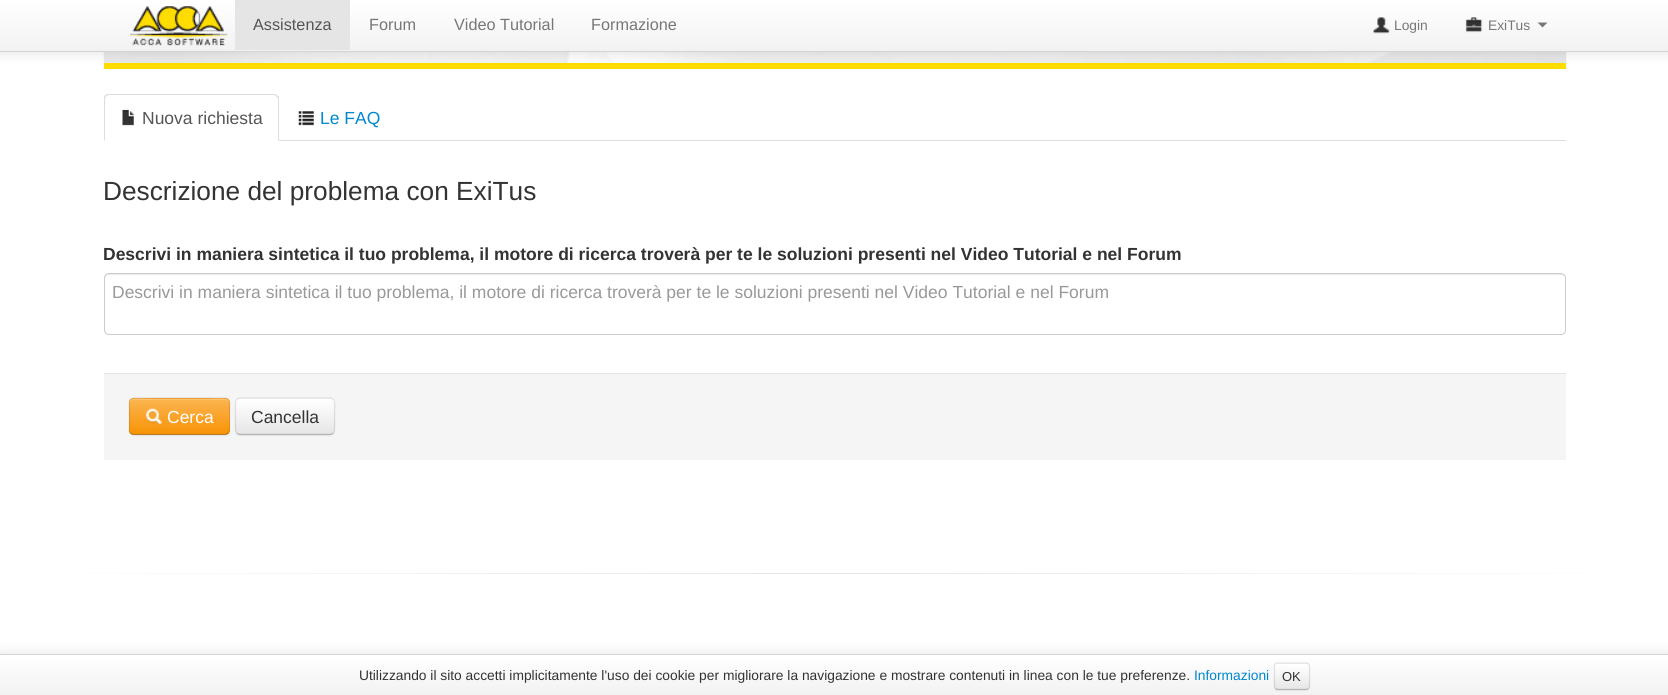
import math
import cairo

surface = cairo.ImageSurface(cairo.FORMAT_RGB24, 1668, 695)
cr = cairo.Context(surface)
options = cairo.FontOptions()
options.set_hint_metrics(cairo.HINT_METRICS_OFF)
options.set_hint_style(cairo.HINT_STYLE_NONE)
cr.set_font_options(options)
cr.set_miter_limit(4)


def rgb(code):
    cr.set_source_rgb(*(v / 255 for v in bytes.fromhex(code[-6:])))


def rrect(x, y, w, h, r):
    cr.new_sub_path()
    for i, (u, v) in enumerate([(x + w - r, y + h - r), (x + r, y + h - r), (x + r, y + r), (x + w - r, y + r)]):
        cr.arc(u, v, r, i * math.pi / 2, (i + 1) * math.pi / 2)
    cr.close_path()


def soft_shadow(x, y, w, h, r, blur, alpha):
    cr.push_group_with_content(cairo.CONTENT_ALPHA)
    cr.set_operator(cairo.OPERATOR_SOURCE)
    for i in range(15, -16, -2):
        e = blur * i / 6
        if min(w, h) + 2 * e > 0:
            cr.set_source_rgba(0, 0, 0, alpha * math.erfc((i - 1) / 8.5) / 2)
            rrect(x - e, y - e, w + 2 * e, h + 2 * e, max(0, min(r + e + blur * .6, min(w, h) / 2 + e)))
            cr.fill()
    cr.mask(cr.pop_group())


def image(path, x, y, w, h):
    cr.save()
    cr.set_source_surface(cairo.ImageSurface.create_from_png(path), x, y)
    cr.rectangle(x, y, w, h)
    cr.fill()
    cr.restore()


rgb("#ffffff")
cr.paint()
image("img/4.png", 103, 52, 1464, 17)
rgb("#ffdd00")
cr.rectangle(104, 63, 1462, 6)
cr.fill()
rgb("#000000")
soft_shadow(0, 1, 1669, 53, 0, 6, 0.1)
gradient = cairo.LinearGradient(834, 0, 834, 51)
gradient.add_color_stop_rgba(0, 1, 1, 1, 1)
gradient.add_color_stop_rgba(1, 0.949, 0.949, 0.949, 1)
cr.set_source(gradient)
cr.rectangle(0, 0, 1668, 51)
cr.fill()
rgb("#d4d4d4")
cr.rectangle(0, 51, 1668, 1)
cr.fill()
image("img/1.png", 130, 6, 98, 40)
rgb("#e5e5e5")
cr.rectangle(235, 0, 115, 50)
cr.fill()
image("img/2.png", 1373, 17, 17, 17)
image("img/3.png", 1465, 17, 18, 16)
rgb("#777777")
cr.new_path()
cr.move_to(1537.5, 22.5)
cr.line_to(1547.5, 22.5)
cr.line_to(1542.5, 27.5)
cr.close_path()
cr.fill()
rgb("#dddddd")
cr.rectangle(279, 140, 1287, 1)
cr.fill()
cr.new_path()
cr.move_to(109, 94)
cr.curve_to(108, 94, 106, 94, 105, 95)
cr.line_to(106, 96)
cr.line_to(109, 95)
cr.line_to(274, 95)
cr.line_to(276, 96)
cr.line_to(277, 95)
cr.line_to(274, 94)
cr.close_path()
cr.fill()
cr.new_path()
cr.move_to(277, 95)
cr.line_to(279, 97)
cr.line_to(279, 141)
cr.line_to(278, 140)
cr.line_to(278, 99)
cr.curve_to(278, 98, 277, 97, 276, 96)
cr.close_path()
cr.fill()
cr.new_path()
cr.move_to(105, 95)
cr.curve_to(104, 96, 104, 98, 104, 99)
cr.line_to(104, 141)
cr.line_to(105, 140)
cr.line_to(105, 99)
cr.curve_to(105, 98, 106, 97, 106, 96)
cr.close_path()
cr.fill()
image("img/5.png", 122, 109, 12, 17)
image("img/6.png", 298, 111, 16, 15)
rgb("#ececec")
cr.new_path()
cr.move_to(109, 275)
cr.line_to(1561, 275)
cr.curve_to(1563, 275, 1565, 277, 1565, 279)
cr.line_to(1565, 278)
cr.curve_to(1565, 276, 1563, 274, 1561, 274)
cr.line_to(109, 274)
cr.curve_to(107, 274, 105, 276, 105, 278)
cr.line_to(105, 279)
cr.curve_to(105, 277, 107, 275, 109, 275)
cr.close_path()
cr.fill()
rrect(104.5, 273.5, 1461, 61, 4.5)
rgb("#cccccc")
cr.set_line_width(1)
cr.stroke()
rgb("#f5f5f5")
cr.rectangle(104, 374, 1462, 86)
cr.fill()
rgb("#e5e5e5")
cr.rectangle(104, 373, 1462, 1)
cr.fill()
rgb("#000000")
soft_shadow(129, 399, 101, 37, 5, 1, 0.05)
rgb("#faa732")
rrect(129, 398, 101, 37, 5)
cr.fill()
cr.save()
rrect(129, 398, 101, 37, 5)
cr.clip()
gradient = cairo.LinearGradient(179, 399, 179, 434)
gradient.add_color_stop_rgba(0, 0.984, 0.706, 0.314, 1)
gradient.add_color_stop_rgba(1, 0.973, 0.58, 0.024, 1)
cr.set_source(gradient)
cr.rectangle(129, 399, 101, 35)
cr.fill()
cr.restore()
cr.set_source_rgba(1, 1, 1, 0.2)
cr.new_path()
cr.move_to(134, 400)
cr.line_to(225, 400)
cr.curve_to(227, 400, 229, 402, 229, 404)
cr.curve_to(229, 395, 214, 399, 210, 399)
cr.line_to(149, 399)
cr.curve_to(145, 399, 130, 395, 130, 404)
cr.curve_to(130, 402, 132, 400, 134, 400)
cr.close_path()
cr.fill()
cr.new_path()
cr.move_to(228, 433)
cr.curve_to(227.5, 434, 226, 434.5, 225, 434.5)
cr.line_to(134, 434.5)
cr.curve_to(132.5, 434.5, 131.5, 434, 130.5, 433)
cr.set_source_rgba(0, 0, 0, 0.25)
cr.set_line_width(1.2)
cr.stroke()
cr.new_path()
cr.move_to(130.5, 433)
cr.curve_to(128.5, 431, 129.5, 428, 129.5, 425.5)
cr.line_to(129.5, 416)
cr.curve_to(129.5, 395, 126.5, 398, 149, 398)
cr.line_to(210, 398)
cr.curve_to(232, 398, 229.5, 395, 229.5, 416)
cr.line_to(229.5, 425.5)
cr.curve_to(229.5, 428, 230, 431, 228, 433)
cr.set_source_rgba(0, 0, 0, 0.1)
cr.stroke()
image("img/7.png", 146, 408, 17, 17)
rgb("#000000")
soft_shadow(235, 399, 100, 37, 5, 1, 0.05)
rgb("#f5f5f5")
rrect(235, 398, 100, 37, 5)
cr.fill()
cr.save()
rrect(235, 398, 100, 37, 5)
cr.clip()
gradient = cairo.LinearGradient(285, 399, 285, 434)
gradient.add_color_stop_rgba(0, 1, 1, 1, 1)
gradient.add_color_stop_rgba(1, 0.902, 0.902, 0.902, 1)
cr.set_source(gradient)
cr.rectangle(235, 399, 100, 35)
cr.fill()
cr.restore()
cr.new_path()
cr.move_to(333, 433)
cr.curve_to(332.5, 434, 331, 434.5, 330, 434.5)
cr.line_to(240, 434.5)
cr.curve_to(239, 434.5, 237.5, 434, 237, 433)
rgb("#b3b3b3")
cr.stroke()
cr.new_path()
cr.move_to(237, 433)
cr.curve_to(235, 431, 235.5, 428, 235.5, 425.5)
cr.line_to(235.5, 416)
cr.curve_to(235.5, 395, 233, 398, 255, 398)
cr.line_to(315, 398)
cr.curve_to(337, 398, 334.5, 395, 334.5, 416)
cr.line_to(334.5, 425.5)
cr.curve_to(334.5, 428, 335, 431, 333, 433)
cr.set_source_rgba(0, 0, 0, 0.1)
cr.stroke()
gradient = cairo.LinearGradient(0, 573, 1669, 573)
gradient.add_color_stop_rgba(0, 1, 1, 1, 1)
gradient.add_color_stop_rgba(0.5, 0.902, 0.902, 0.902, 1)
gradient.add_color_stop_rgba(1, 1, 1, 1, 1)
cr.set_source(gradient)
cr.rectangle(83, 573, 1503, 1)
cr.fill()
rgb("#000000")
soft_shadow(0, 653, 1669, 41, 0, 6, 0.1)
gradient = cairo.LinearGradient(834, 655, 834, 695)
gradient.add_color_stop_rgba(0, 1, 1, 1, 1)
gradient.add_color_stop_rgba(1, 0.949, 0.949, 0.949, 1)
cr.set_source(gradient)
cr.rectangle(0, 655, 1668, 40)
cr.fill()
rgb("#d4d4d4")
cr.rectangle(0, 654, 1668, 1)
cr.fill()
rgb("#000000")
soft_shadow(1274, 664, 36, 27, 4, 1, 0.05)
rgb("#f5f5f5")
rrect(1274, 663, 36, 27, 4)
cr.fill()
cr.save()
rrect(1274, 663, 36, 27, 4)
cr.clip()
gradient = cairo.LinearGradient(1292, 664, 1292, 689)
gradient.add_color_stop_rgba(0, 1, 1, 1, 1)
gradient.add_color_stop_rgba(1, 0.902, 0.902, 0.902, 1)
cr.set_source(gradient)
cr.rectangle(1274, 664, 36, 25)
cr.fill()
cr.restore()
cr.new_path()
cr.move_to(1308.5, 688.5)
cr.curve_to(1308, 689, 1307, 689.5, 1306, 689.5)
cr.line_to(1277.5, 689.5)
cr.curve_to(1276.5, 689.5, 1276, 689, 1275.5, 688.5)
rgb("#b3b3b3")
cr.stroke()
cr.new_path()
cr.move_to(1275.5, 688.5)
cr.curve_to(1274.5, 688, 1274.5, 687, 1274.5, 686)
cr.line_to(1274.5, 666)
cr.curve_to(1274.5, 665.5, 1274.5, 664.5, 1275.5, 664)
cr.curve_to(1276, 663.5, 1276.5, 663, 1277.5, 663)
cr.line_to(1306, 663)
cr.curve_to(1307, 663, 1308, 663.5, 1308.5, 664)
cr.curve_to(1309, 664.5, 1309.5, 665.5, 1309.5, 666)
cr.line_to(1309.5, 686)
cr.curve_to(1309.5, 687, 1309, 688, 1308.5, 688.5)
cr.set_source_rgba(0, 0, 0, 0.1)
cr.stroke()
cr.select_font_face("Liberation Sans")
cr.set_font_size(16.25)
rgb("#555555")
cr.move_to(253, 30)
cr.show_text("Assistenza")
rgb("#777777")
for x, y, s in [
    (369, 30, "Forum"),
    (454, 30, "Video Tutorial"),
    (591, 30, "Formazione"),
]:
    cr.move_to(x, y)
    cr.show_text(s)
cr.set_font_size(13.8)
cr.move_to(1394, 30)
cr.show_text("Login")
cr.move_to(1488, 30)
cr.show_text("ExiTus")
cr.set_font_size(17.5)
rgb("#555555")
cr.move_to(142, 124)
cr.show_text("Nuova richiesta")
rgb("#0088cc")
cr.move_to(320, 124)
cr.show_text("Le FAQ")
cr.set_font_size(26.25)
rgb("#333333")
cr.move_to(103, 200)
cr.show_text("Descrizione del problema con ExiTus")
cr.select_font_face("Liberation Sans", cairo.FONT_SLANT_NORMAL, cairo.FONT_WEIGHT_BOLD)
cr.set_font_size(17.5)
cr.move_to(103, 260)
cr.show_text("Descrivi in maniera sintetica il tuo problema, il motore di ricerca troverà per te le soluzioni presenti nel Video Tutorial e nel Forum")
cr.select_font_face("Liberation Sans")
rgb("#999999")
cr.move_to(112, 298)
cr.show_text("Descrivi in maniera sintetica il tuo problema, il motore di ricerca troverà per te le soluzioni presenti nel Video Tutorial e nel Forum")
rgb("#ffffff")
cr.move_to(167, 423)
cr.show_text("Cerca")
rgb("#333333")
cr.move_to(251, 423)
cr.show_text("Cancella")
cr.set_font_size(13.8)
cr.move_to(359, 680)
cr.show_text("Utilizzando il sito accetti implicitamente l'uso dei cookie per migliorare la navigazione e mostrare contenuti in linea con le tue preferenze.")
rgb("#0088cc")
cr.move_to(1194, 680)
cr.show_text("Informazioni")
cr.set_font_size(13)
rgb("#333333")
cr.move_to(1282, 681)
cr.show_text("OK")
surface.write_to_png("page.png")
